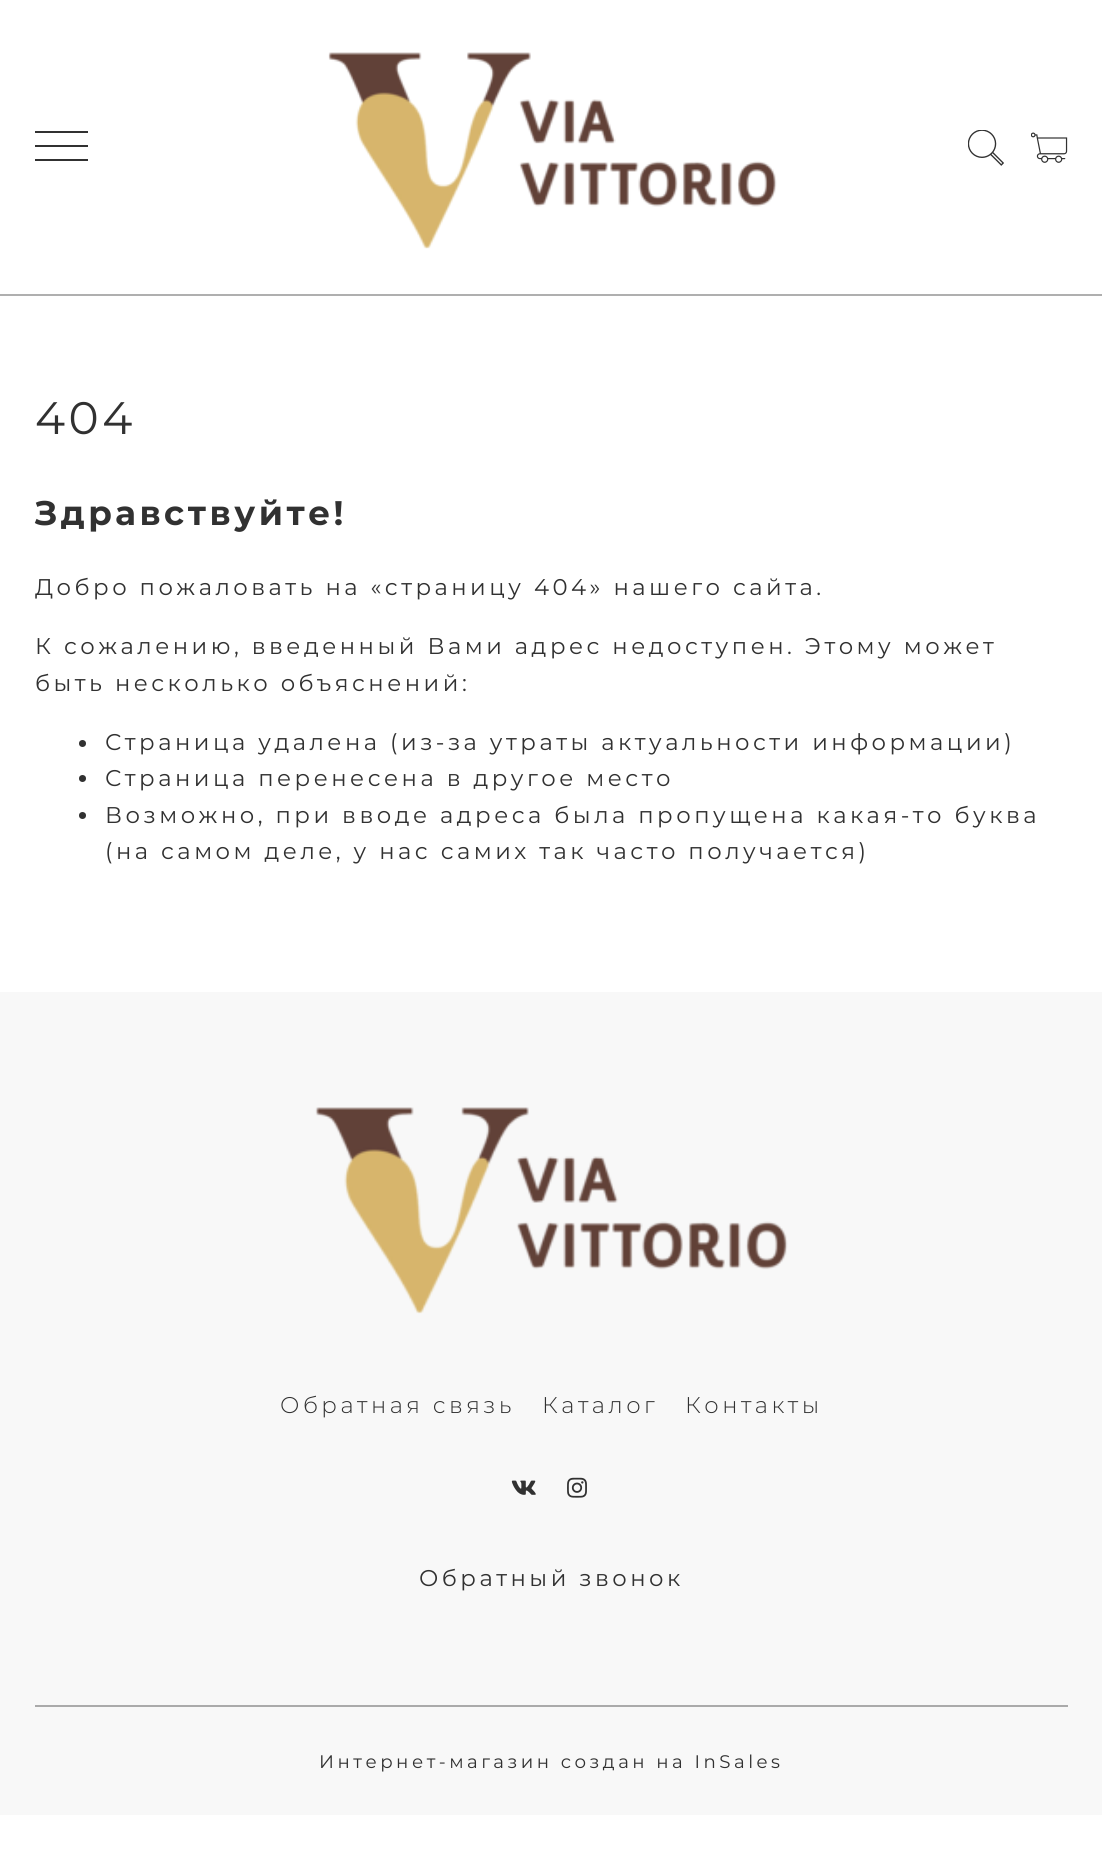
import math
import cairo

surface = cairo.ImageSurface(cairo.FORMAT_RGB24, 1102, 1850)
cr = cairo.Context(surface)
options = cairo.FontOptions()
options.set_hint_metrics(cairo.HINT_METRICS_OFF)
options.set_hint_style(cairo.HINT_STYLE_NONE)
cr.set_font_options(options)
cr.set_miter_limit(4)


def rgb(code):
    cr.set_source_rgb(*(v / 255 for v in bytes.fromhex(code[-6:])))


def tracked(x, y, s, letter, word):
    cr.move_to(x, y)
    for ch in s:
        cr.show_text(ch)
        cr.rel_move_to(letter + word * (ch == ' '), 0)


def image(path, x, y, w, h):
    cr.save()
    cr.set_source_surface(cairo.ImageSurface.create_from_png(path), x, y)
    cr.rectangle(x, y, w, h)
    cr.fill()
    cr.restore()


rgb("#ffffff")
cr.paint()
for x, y, w, h, color in [
    (35, 131, 53, 2, "#313131"),
    (35, 145, 53, 2, "#313131"),
    (35, 159, 53, 2, "#313131"),
]:
    rgb(color)
    cr.rectangle(x, y, w, h)
    cr.fill()
image("img/1.png", 328, 52, 449, 197)
image("img/2.png", 968, 130, 36, 36)
image("img/3.png", 1031, 132, 37, 31)
rgb("#afafaf")
cr.rectangle(0, 294, 1102, 2)
cr.fill()
rgb("#313131")
cr.arc(82.5, 743.5, 3.5, 0, 2 * math.pi)
cr.fill()
cr.arc(82.5, 778.5, 3.5, 0, 2 * math.pi)
cr.fill()
cr.arc(82.5, 815.5, 3.5, 0, 2 * math.pi)
cr.fill()
rgb("#f8f8f8")
cr.rectangle(0, 992, 1102, 823)
cr.fill()
image("img/4.png", 315, 1107, 473, 207)
image("img/5.png", 511, 1480, 25, 15)
image("img/6.png", 567, 1477, 20, 21)
rgb("#aaaaaa")
cr.rectangle(35, 1705, 1033, 2)
cr.fill()
cr.select_font_face("Montserrat")
cr.set_font_size(45.5)
rgb("#313131")
tracked(35, 434, "404", 3.5, 0)
cr.select_font_face("Montserrat", cairo.FONT_SLANT_NORMAL, cairo.FONT_WEIGHT_BOLD)
cr.set_font_size(34.1)
tracked(35, 525, "Здравствуйте!", 3.5, 0)
cr.select_font_face("Montserrat")
cr.set_font_size(22.75)
for x, y, s in [
    (35, 595, "Добро пожаловать на «страницу 404» нашего сайта."),
    (35, 654, "К сожалению, введенный Вами адрес недоступен. Этому может"),
    (35, 691, "быть несколько объяснений:"),
    (105, 750, "Страница удалена (из-за утраты актуальности информации)"),
    (105, 786, "Страница перенесена в другое место"),
    (105, 823, "Возможно, при вводе адреса была пропущена какая-то буква"),
    (105, 859, "(на самом деле, у нас самих так часто получается)"),
]:
    tracked(x, y, s, 3.5, 0)
cr.select_font_face("Montserrat Light")
for x, y, s in [
    (280, 1413, "Обратная связь"),
    (542, 1413, "Каталог"),
    (685, 1413, "Контакты"),
]:
    tracked(x, y, s, 3.5, 0)
cr.select_font_face("Montserrat")
tracked(419, 1586, "Обратный звонок", 3.5, 0)
cr.set_font_size(18.2)
tracked(319, 1768, "Интернет-магазин создан на InSales", 3.5, 0)
surface.write_to_png("page.png")
